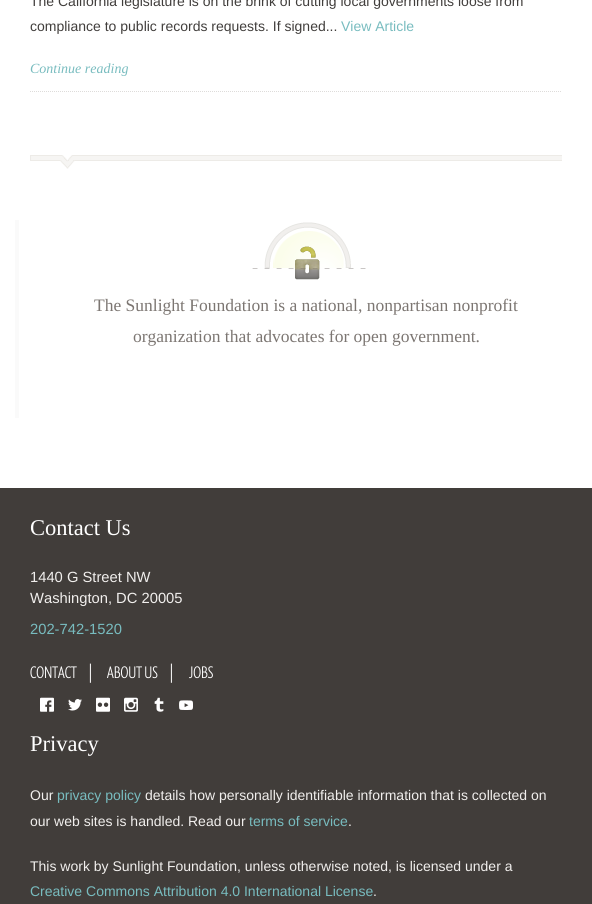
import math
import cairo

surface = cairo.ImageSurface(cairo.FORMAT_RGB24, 592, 904)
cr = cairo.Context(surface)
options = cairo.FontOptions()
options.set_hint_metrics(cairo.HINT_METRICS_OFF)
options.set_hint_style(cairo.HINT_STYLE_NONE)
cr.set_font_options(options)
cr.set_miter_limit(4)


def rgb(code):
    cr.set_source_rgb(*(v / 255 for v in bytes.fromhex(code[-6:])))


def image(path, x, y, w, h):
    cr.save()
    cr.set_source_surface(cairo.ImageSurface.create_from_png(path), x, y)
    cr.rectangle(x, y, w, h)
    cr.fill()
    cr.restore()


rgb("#ffffff")
cr.paint()
image("img/1.png", 30, 155, 532, 14)
cr.new_path()
cr.move_to(30, 91.5)
cr.line_to(562, 91.5)
rgb("#dedcda")
cr.set_line_width(1)
cr.set_dash([1, 1])
cr.stroke()
image("img/2.png", 15, 220, 4, 198)
image("img/3.png", 252, 222, 114, 58)
rgb("#413d3a")
cr.rectangle(0, 488, 592, 416)
cr.fill()
image("img/4.png", 40, 697, 14, 15)
image("img/5.png", 68, 699, 14, 12)
image("img/6.png", 96, 697, 14, 15)
image("img/7.png", 124, 697, 14, 15)
image("img/8.png", 154, 697, 10, 15)
image("img/9.png", 179, 700, 14, 10)
cr.select_font_face("Liberation Sans")
cr.set_font_size(14)
rgb("#413e3c")
cr.move_to(30, 6)
cr.show_text("The California legislature is on the brink of cutting local governments loose from")
cr.move_to(30, 31)
cr.show_text("compliance to public records requests. If signed...")
rgb("#78bcbf")
cr.move_to(341, 31)
cr.show_text("View Article")
cr.select_font_face("Liberation Serif", cairo.FONT_SLANT_ITALIC)
cr.move_to(30, 73)
cr.show_text("Continue reading")
cr.select_font_face("Liberation Serif")
cr.set_font_size(17.5)
rgb("#7c7672")
cr.move_to(94, 311)
cr.show_text("The Sunlight Foundation is a national, nonpartisan nonprofit")
cr.move_to(133, 342)
cr.show_text("organization that advocates for open government.")
cr.set_font_size(22.5)
rgb("#ffffff")
cr.move_to(30, 535)
cr.show_text("Contact Us")
cr.select_font_face("Liberation Sans")
cr.set_font_size(14.75)
rgb("#f1efed")
cr.move_to(30, 582)
cr.show_text("1440 G Street NW")
cr.move_to(30, 603)
cr.show_text("Washington, DC 20005")
rgb("#78bcbf")
cr.move_to(30, 634)
cr.show_text("202-742-1520")
cr.select_font_face("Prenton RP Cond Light")
cr.set_font_size(17)
rgb("#ffffff")
for x, y, s in [
    (30, 678, "CONTACT"),
    (87, 678, "|"),
    (107, 678, "ABOUT US"),
    (168, 678, "|"),
    (189, 678, "JOBS"),
]:
    cr.move_to(x, y)
    cr.show_text(s)
cr.select_font_face("Liberation Serif")
cr.set_font_size(22.5)
cr.move_to(30, 751)
cr.show_text("Privacy")
cr.select_font_face("Liberation Sans")
cr.set_font_size(14)
rgb("#f1efed")
cr.move_to(30, 800)
cr.show_text("Our")
rgb("#78bcbf")
cr.move_to(57, 800)
cr.show_text("privacy policy")
rgb("#f1efed")
cr.move_to(145, 800)
cr.show_text("details how personally identifiable information that is collected on")
cr.move_to(30, 826)
cr.show_text("our web sites is handled. Read our")
rgb("#78bcbf")
cr.move_to(249, 826)
cr.show_text("terms of service")
rgb("#f1efed")
cr.move_to(348, 826)
cr.show_text(".")
cr.move_to(30, 871)
cr.show_text("This work by Sunlight Foundation, unless otherwise noted, is licensed under a")
rgb("#78bcbf")
cr.move_to(30, 896)
cr.show_text("Creative Commons Attribution 4.0 International License")
rgb("#f1efed")
cr.move_to(373, 896)
cr.show_text(".")
surface.write_to_png("page.png")
